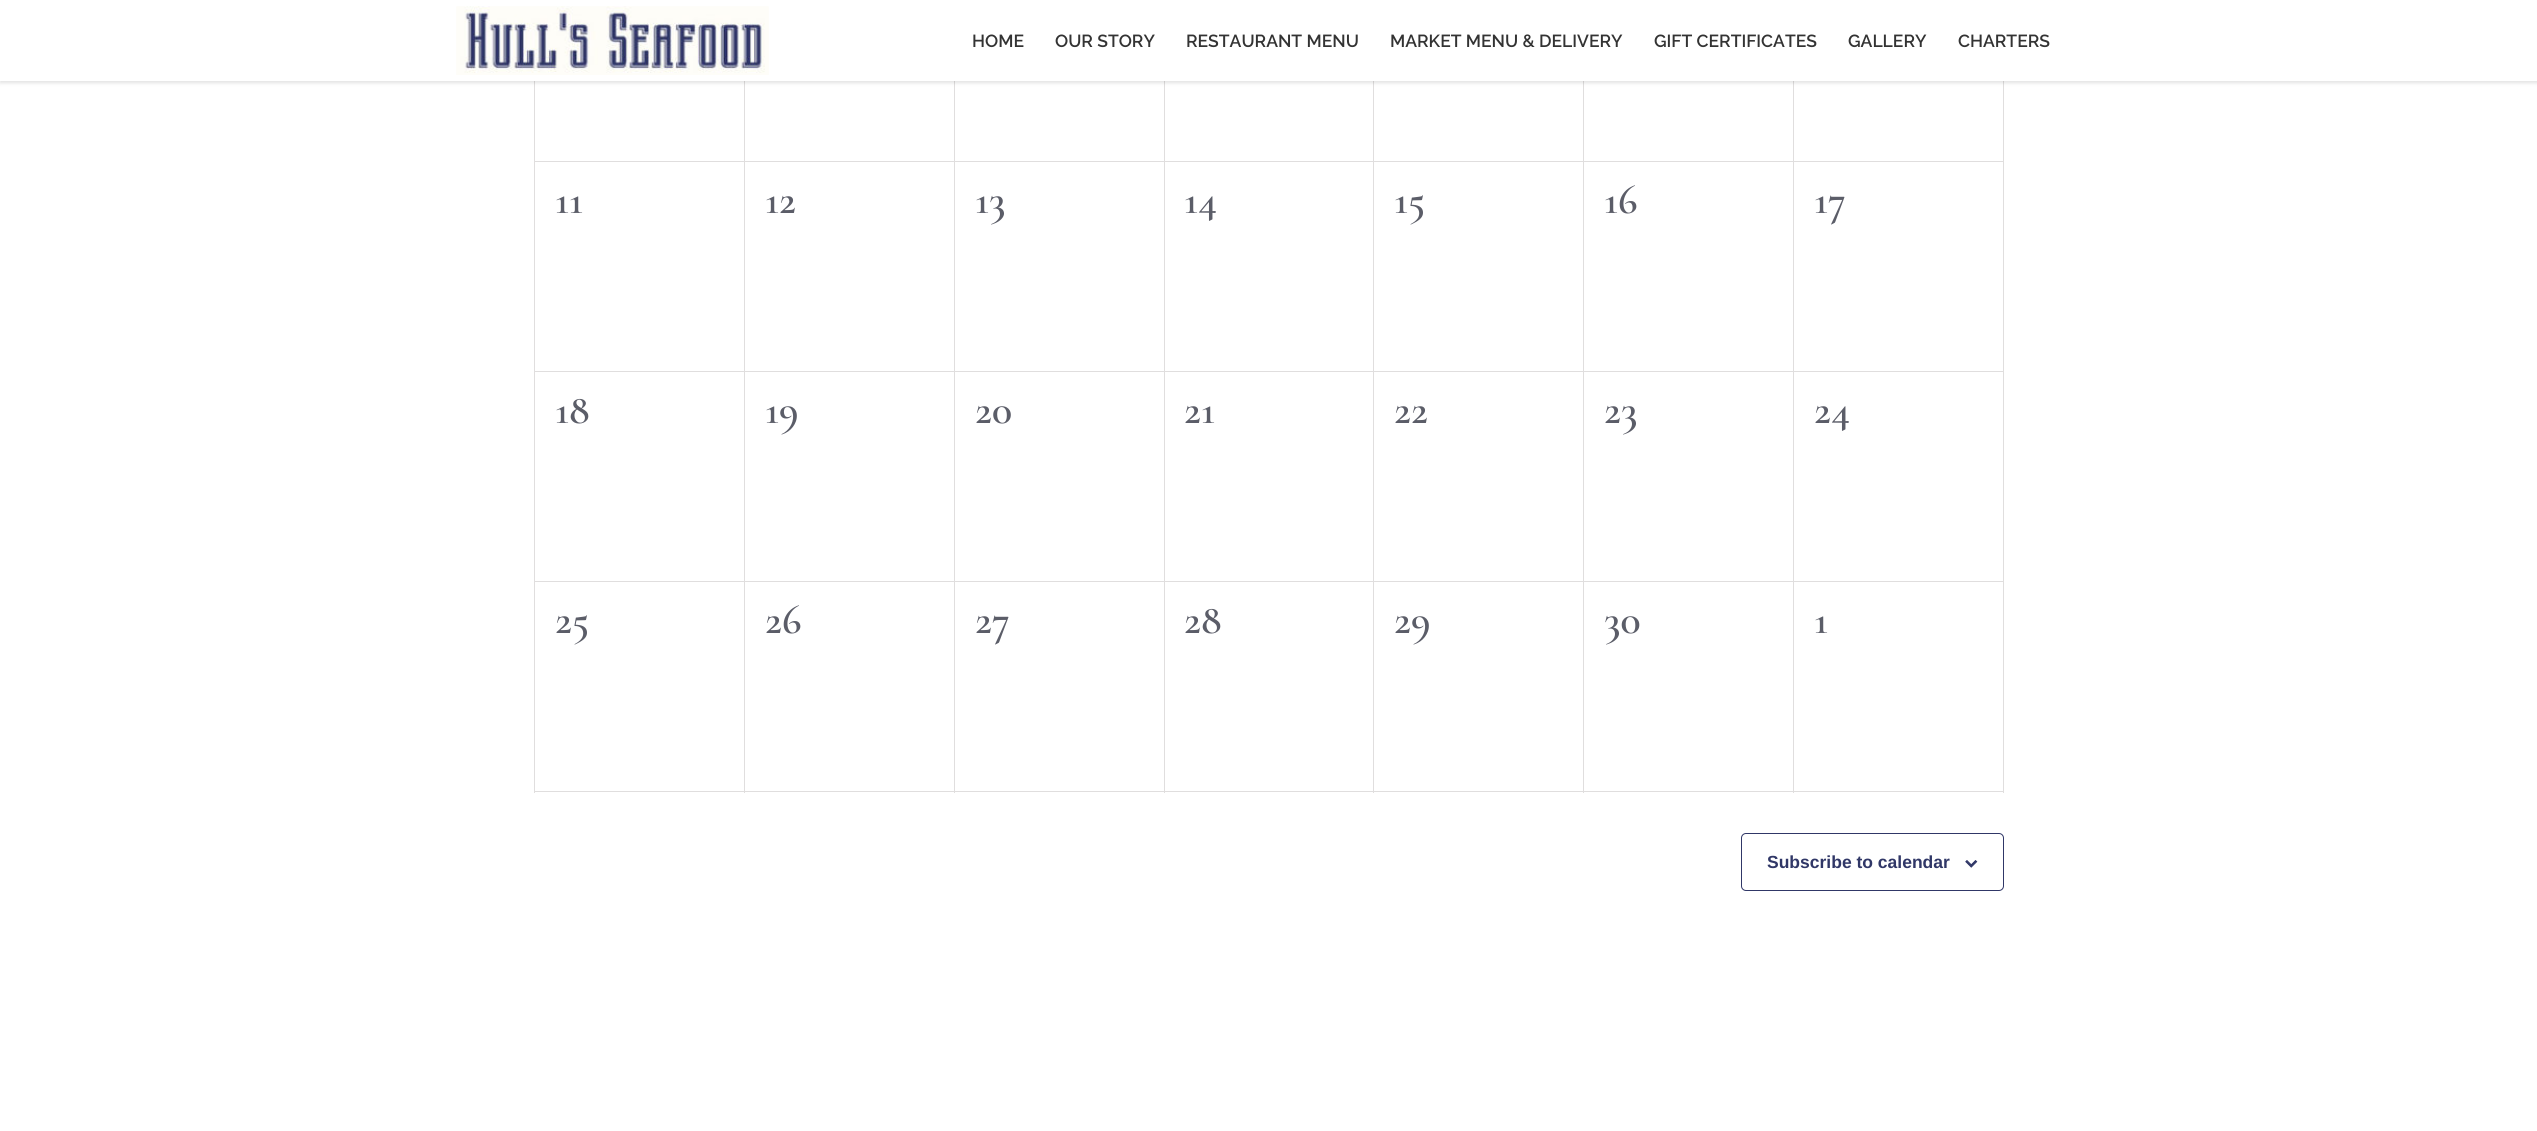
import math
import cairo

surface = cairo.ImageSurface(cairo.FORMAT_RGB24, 2537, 1131)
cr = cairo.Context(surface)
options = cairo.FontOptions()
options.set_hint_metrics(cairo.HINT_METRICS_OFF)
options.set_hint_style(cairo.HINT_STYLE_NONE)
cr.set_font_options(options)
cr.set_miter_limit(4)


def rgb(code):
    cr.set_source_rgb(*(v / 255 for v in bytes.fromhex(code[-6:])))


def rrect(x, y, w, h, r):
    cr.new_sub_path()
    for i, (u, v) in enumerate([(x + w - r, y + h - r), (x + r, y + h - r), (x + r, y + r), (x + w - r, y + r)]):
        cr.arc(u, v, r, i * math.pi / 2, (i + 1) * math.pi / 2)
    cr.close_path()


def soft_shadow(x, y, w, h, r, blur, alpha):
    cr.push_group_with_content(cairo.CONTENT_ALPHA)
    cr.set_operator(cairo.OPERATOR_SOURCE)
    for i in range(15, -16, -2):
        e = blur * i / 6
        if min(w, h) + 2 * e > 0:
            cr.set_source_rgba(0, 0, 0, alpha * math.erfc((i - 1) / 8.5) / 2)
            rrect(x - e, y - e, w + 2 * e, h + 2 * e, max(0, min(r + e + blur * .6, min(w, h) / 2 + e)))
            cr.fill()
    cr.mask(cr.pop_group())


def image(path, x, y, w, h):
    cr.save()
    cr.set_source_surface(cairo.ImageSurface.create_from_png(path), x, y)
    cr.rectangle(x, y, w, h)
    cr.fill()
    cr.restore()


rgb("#ffffff")
cr.paint()
for x, y, w, h, color in [
    (534, 81, 1, 712, "#e0dede"),
    (744, 81, 1, 712, "#e0dede"),
    (954, 81, 1, 712, "#e0dede"),
    (1164, 81, 1, 712, "#e0dede"),
    (1373, 81, 1, 712, "#e0dede"),
    (1583, 81, 1, 712, "#e0dede"),
    (1793, 81, 1, 712, "#e0dede"),
    (2003, 81, 1, 712, "#e0dede"),
]:
    rgb(color)
    cr.rectangle(x, y, w, h)
    cr.fill()
rgb("#000000")
soft_shadow(0, 1, 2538, 82, 0, 2, 0.12)
rgb("#ffffff")
cr.rectangle(0, 0, 2537, 81)
cr.fill()
image("img/1.png", 456, 6, 313, 69)
for x, y, w, h, color in [
    (535, 161, 210, 1, "#e0dede"),
    (745, 161, 210, 1, "#e0dede"),
    (955, 161, 210, 1, "#e0dede"),
    (1165, 161, 209, 1, "#e0dede"),
    (1374, 161, 210, 1, "#e0dede"),
    (1584, 161, 210, 1, "#e0dede"),
    (1794, 161, 210, 1, "#e0dede"),
    (535, 371, 1469, 1, "#e0dede"),
    (535, 581, 1469, 1, "#e0dede"),
    (535, 791, 1469, 1, "#e0dede"),
]:
    rgb(color)
    cr.rectangle(x, y, w, h)
    cr.fill()
rrect(1741.5, 833.5, 262, 57, 4.5)
rgb("#303767")
cr.set_line_width(1)
cr.stroke()
image("img/2.png", 1965, 860, 13, 8)
cr.select_font_face("Raleway SemiBold")
cr.set_font_size(17.5)
rgb("#333333")
for x, y, s in [
    (972, 47, "HOME"),
    (1055, 47, "OUR STORY"),
    (1186, 47, "RESTAURANT MENU"),
    (1390, 47, "MARKET MENU & DELIVERY"),
    (1654, 47, "GIFT CERTIFICATES"),
    (1848, 47, "GALLERY"),
    (1958, 47, "CHARTERS"),
]:
    cr.move_to(x, y)
    cr.show_text(s)
cr.select_font_face("Cormorant SemiBold")
cr.set_font_size(42)
rgb("#5b5d68")
for x, y, s in [
    (555, 213, "11"),
    (765, 213, "12"),
    (975, 213, "13"),
    (1184, 213, "14"),
    (1394, 213, "15"),
    (1604, 213, "16"),
    (1814, 213, "17"),
    (555, 423, "18"),
    (765, 423, "19"),
    (975, 423, "20"),
    (1184, 423, "21"),
    (1394, 423, "22"),
    (1604, 423, "23"),
    (1814, 423, "24"),
    (555, 633, "25"),
    (765, 633, "26"),
    (975, 633, "27"),
    (1184, 633, "28"),
    (1394, 633, "29"),
    (1604, 633, "30"),
    (1814, 633, "1"),
]:
    cr.move_to(x, y)
    cr.show_text(s)
cr.select_font_face("Liberation Sans", cairo.FONT_SLANT_NORMAL, cairo.FONT_WEIGHT_BOLD)
cr.set_font_size(17.5)
rgb("#303767")
cr.move_to(1767, 868)
cr.show_text("Subscribe to calendar")
surface.write_to_png("page.png")
